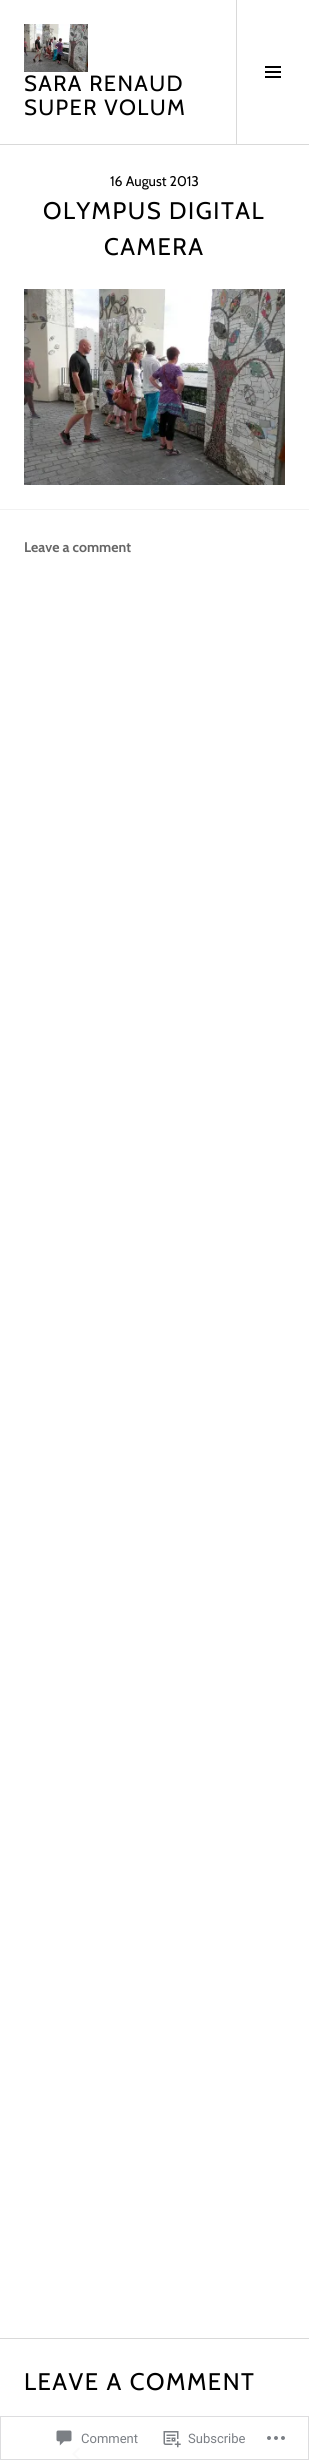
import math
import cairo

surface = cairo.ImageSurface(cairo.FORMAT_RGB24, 309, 2460)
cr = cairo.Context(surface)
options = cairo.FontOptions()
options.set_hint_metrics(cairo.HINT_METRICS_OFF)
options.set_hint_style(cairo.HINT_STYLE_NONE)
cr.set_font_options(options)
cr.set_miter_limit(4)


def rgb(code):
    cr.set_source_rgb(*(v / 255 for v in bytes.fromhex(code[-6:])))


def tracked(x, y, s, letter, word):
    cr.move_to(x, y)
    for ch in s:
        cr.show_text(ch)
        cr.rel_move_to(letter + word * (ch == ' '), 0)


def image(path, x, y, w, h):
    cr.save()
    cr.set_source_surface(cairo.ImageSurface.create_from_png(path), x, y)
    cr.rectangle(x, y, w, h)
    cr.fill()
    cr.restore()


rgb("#ffffff")
cr.paint()
rgb("#d9d9d9")
cr.rectangle(0, 144, 309, 1)
cr.fill()
image("img/1.png", 24, 24, 64, 48)
cr.rectangle(236, 0, 1, 144)
cr.fill()
image("img/2.png", 265, 66, 16, 12)
image("img/3.png", 24, 289, 261, 196)
rgb("#f2f2f2")
cr.rectangle(0, 509, 309, 1)
cr.fill()
rgb("#d9d9d9")
cr.rectangle(0, 2338, 309, 1)
cr.fill()
image("img/4.png", 72, 2447, 9, 13)
cr.rectangle(0.5, 2416.5, 308, 43)
cr.set_source_rgba(0.863, 0.863, 0.871, 0.98)
cr.set_line_width(1)
cr.stroke()
image("img/5.png", 56, 2430, 16, 16)
image("img/6.png", 163, 2431, 18, 17)
image("img/7.png", 267, 2436, 18, 4)
cr.select_font_face("Cabin")
cr.set_font_size(22)
rgb("#000000")
tracked(24, 91, "SARA RENAUD", 1.4, 0)
tracked(24, 115, "SUPER VOLUM", 1.4, 0)
cr.set_font_size(14)
cr.move_to(110, 186)
cr.show_text("16 August 2013")
cr.set_font_size(24)
tracked(43, 219, "OLYMPUS DIGITAL", 1.5, 0)
tracked(104, 255, "CAMERA", 1.5, 0)
cr.select_font_face("Cabin", cairo.FONT_SLANT_NORMAL, cairo.FONT_WEIGHT_BOLD)
cr.set_font_size(14)
rgb("#666666")
cr.move_to(24, 552)
cr.show_text("Leave a comment")
cr.select_font_face("Cabin")
cr.set_font_size(24)
rgb("#000000")
tracked(24, 2390, "LEAVE A COMMENT", 1.5, 0)
cr.select_font_face("Roboto")
cr.set_font_size(13)
rgb("#7b7f85")
cr.move_to(81, 2443)
cr.show_text("Comment")
cr.move_to(188, 2443)
cr.show_text("Subscribe")
surface.write_to_png("page.png")
